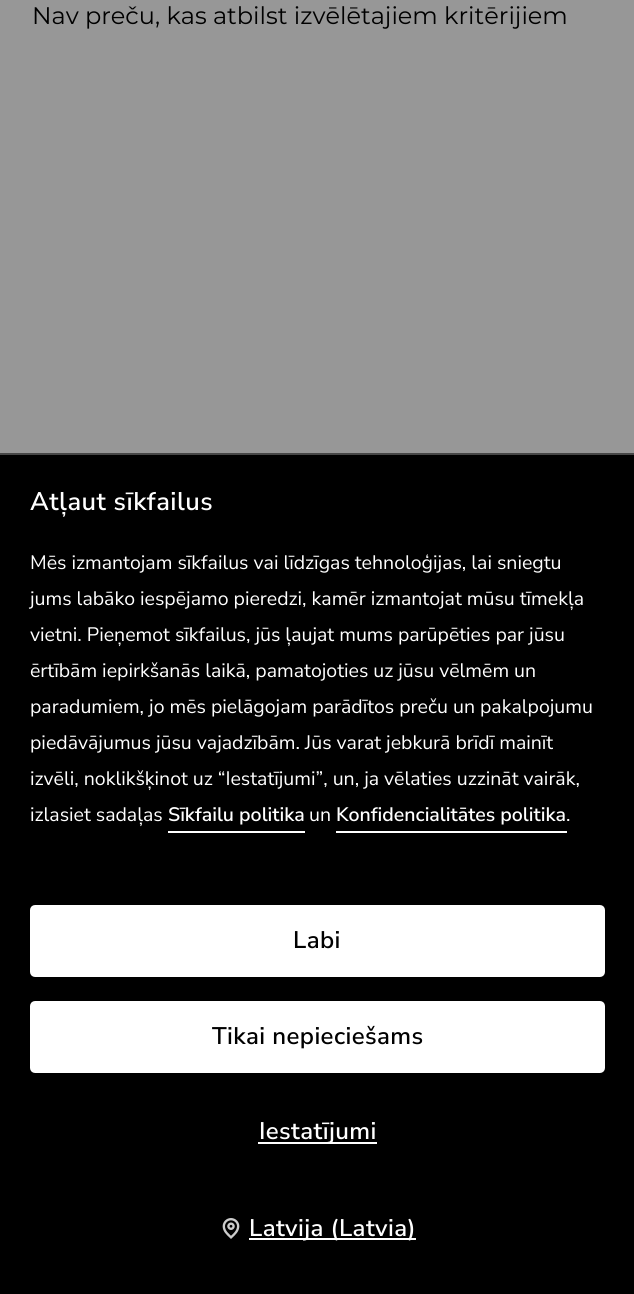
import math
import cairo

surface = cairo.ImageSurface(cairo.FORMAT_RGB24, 634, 1294)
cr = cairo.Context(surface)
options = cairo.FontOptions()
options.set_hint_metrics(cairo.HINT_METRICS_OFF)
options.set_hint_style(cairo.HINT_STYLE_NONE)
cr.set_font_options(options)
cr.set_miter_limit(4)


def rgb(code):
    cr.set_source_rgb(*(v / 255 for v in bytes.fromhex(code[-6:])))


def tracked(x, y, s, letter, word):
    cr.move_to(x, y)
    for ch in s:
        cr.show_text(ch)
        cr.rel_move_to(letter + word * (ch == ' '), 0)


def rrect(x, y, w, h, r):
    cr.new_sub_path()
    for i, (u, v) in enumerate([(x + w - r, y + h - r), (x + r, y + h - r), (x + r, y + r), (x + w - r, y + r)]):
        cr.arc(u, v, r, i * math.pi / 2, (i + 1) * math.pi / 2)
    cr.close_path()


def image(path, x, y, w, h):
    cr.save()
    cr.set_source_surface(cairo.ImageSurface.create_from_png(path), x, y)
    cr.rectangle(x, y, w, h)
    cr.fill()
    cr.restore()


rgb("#979797")
cr.paint()
for x, y, w, h, color in [
    (0, 455, 634, 839, "#000000"),
    (0, 453, 634, 2, "#474747"),
    (168, 831, 137, 2, "#ffffff"),
    (336, 831, 231, 2, "#ffffff"),
]:
    rgb(color)
    cr.rectangle(x, y, w, h)
    cr.fill()
rrect(31.5, 906.5, 572, 69, 3.5)
cr.fill_preserve()
cr.set_line_width(3)
cr.stroke()
rrect(31.5, 1002.5, 572, 69, 3.5)
cr.fill_preserve()
cr.stroke()
cr.rectangle(258, 1142, 119, 2)
cr.fill()
image("img/1.png", 222, 1218, 18, 21)
cr.rectangle(249, 1238, 167, 2)
cr.fill()
cr.select_font_face("Montserrat")
cr.set_font_size(24)
rgb("#000000")
cr.move_to(32, 24)
cr.show_text("Nav preču, kas atbilst izvēlētajiem kritērijiem")
cr.select_font_face("Nunito Sans SemiBold")
cr.set_font_size(25.5)
rgb("#ffffff")
tracked(30, 510, "Atļaut sīkfailus", 0.5, 0)
cr.select_font_face("Nunito Sans")
cr.set_font_size(19.5)
for x, y, s in [
    (30, 569, "Mēs izmantojam sīkfailus vai līdzīgas tehnoloģijas, lai sniegtu"),
    (30, 605, "jums labāko iespējamo pieredzi, kamēr izmantojat mūsu tīmekļa"),
    (30, 641, "vietni. Pieņemot sīkfailus, jūs ļaujat mums parūpēties par jūsu"),
    (30, 677, "ērtībām iepirkšanās laikā, pamatojoties uz jūsu vēlmēm un"),
    (30, 713, "paradumiem, jo mēs pielāgojam parādītos preču un pakalpojumu"),
    (30, 749, "piedāvājumus jūsu vajadzībām. Jūs varat jebkurā brīdī mainīt"),
    (30, 785, "izvēli, noklikšķinot uz “Iestatījumi”, un, ja vēlaties uzzināt vairāk,"),
    (30, 821, "izlasiet sadaļas"),
]:
    cr.move_to(x, y)
    cr.show_text(s)
cr.select_font_face("Nunito Sans SemiBold")
cr.move_to(168, 821)
cr.show_text("Sīkfailu politika")
cr.select_font_face("Nunito Sans")
cr.move_to(309, 821)
cr.show_text("un")
cr.select_font_face("Nunito Sans SemiBold")
cr.move_to(336, 821)
cr.show_text("Konfidencialitātes politika")
cr.select_font_face("Nunito Sans")
cr.move_to(566, 821)
cr.show_text(".")
cr.select_font_face("Nunito Sans SemiBold")
cr.set_font_size(24)
rgb("#000000")
tracked(293, 948, "Labi", 0.4, 0)
tracked(212, 1044, "Tikai nepieciešams", 0.4, 0)
rgb("#ffffff")
tracked(259, 1139, "Iestatījumi", 0.4, 0)
tracked(249, 1236, "Latvija (Latvia)", 0.4, 0)
surface.write_to_png("page.png")
